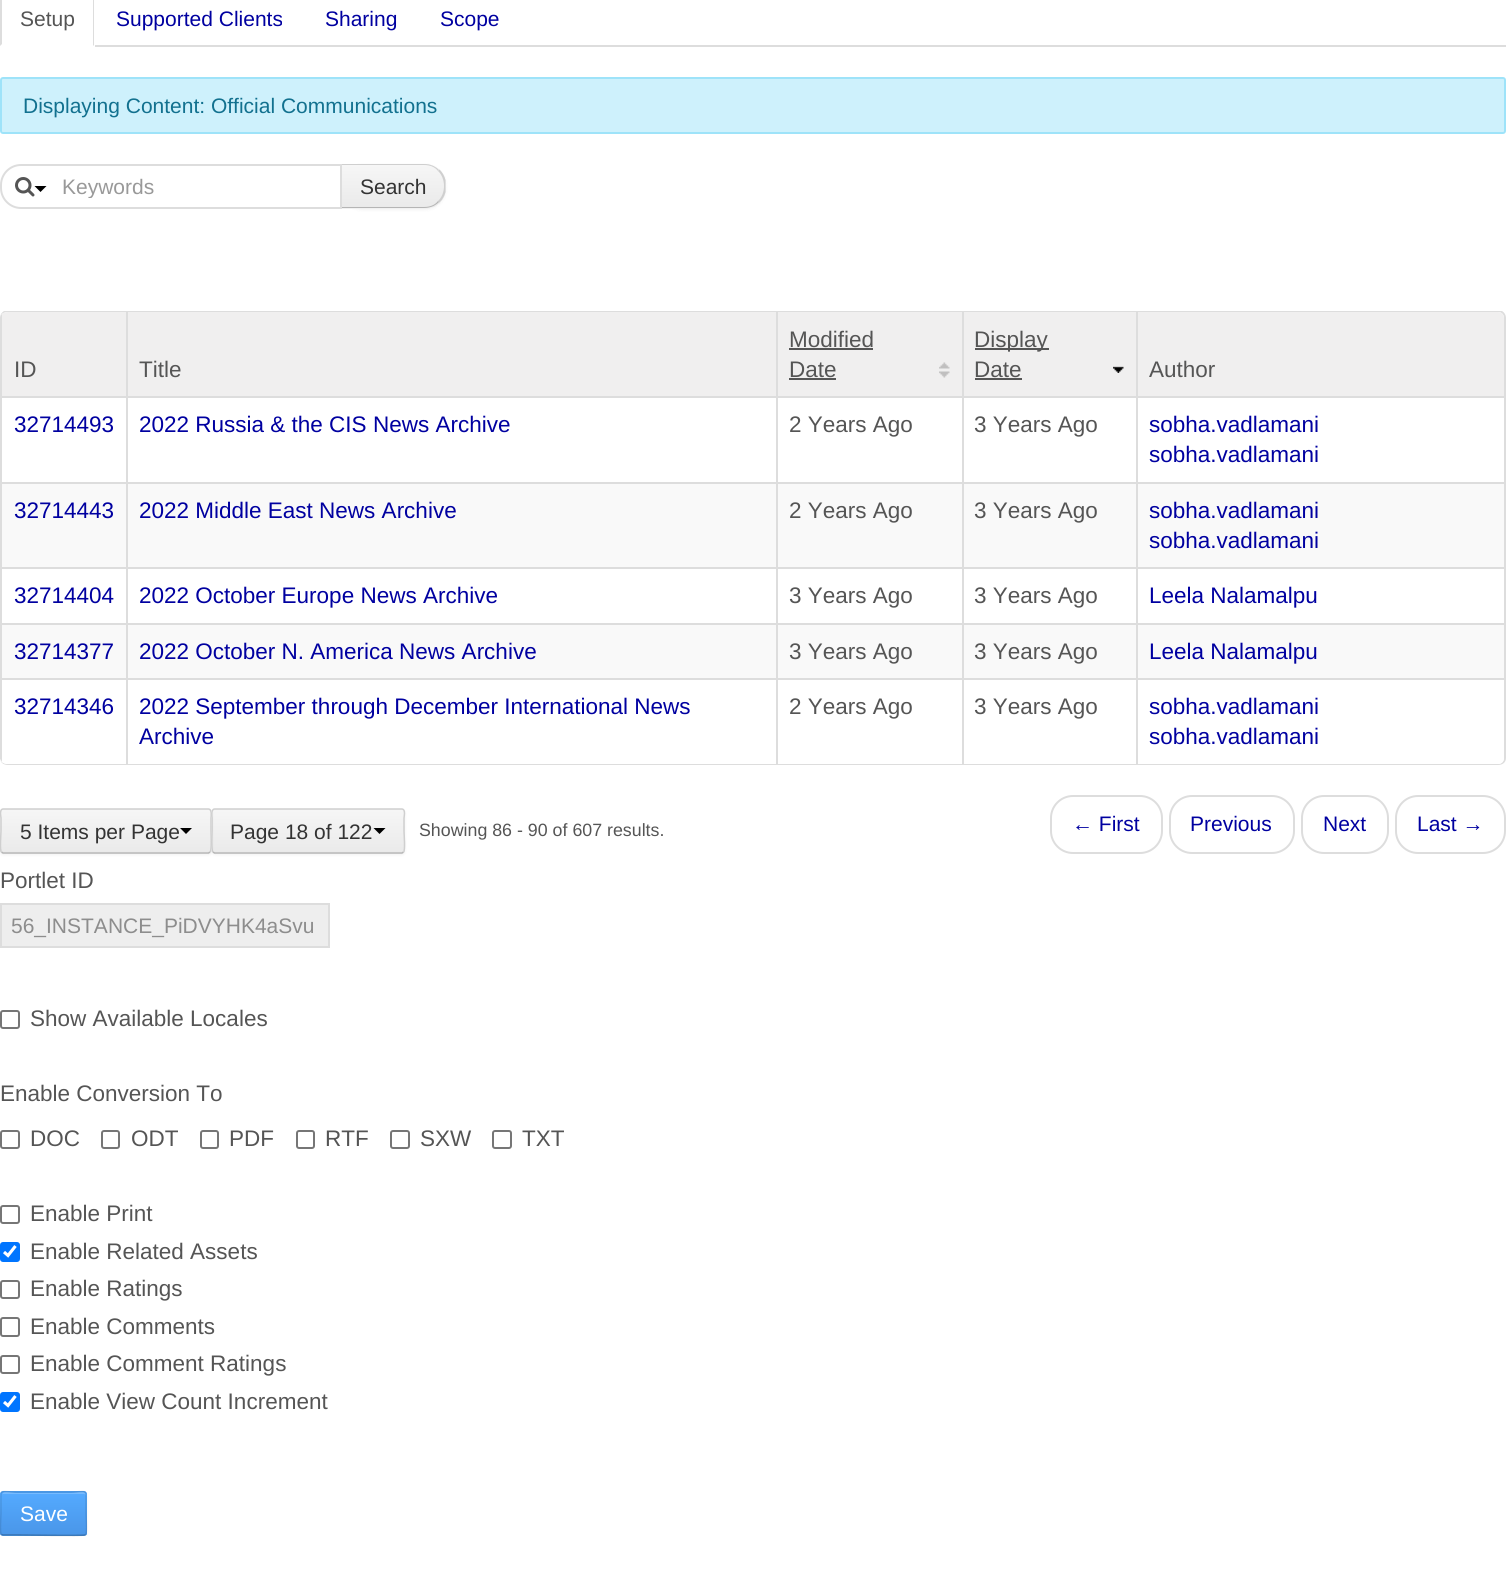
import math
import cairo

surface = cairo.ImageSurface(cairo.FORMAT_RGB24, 1506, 1596)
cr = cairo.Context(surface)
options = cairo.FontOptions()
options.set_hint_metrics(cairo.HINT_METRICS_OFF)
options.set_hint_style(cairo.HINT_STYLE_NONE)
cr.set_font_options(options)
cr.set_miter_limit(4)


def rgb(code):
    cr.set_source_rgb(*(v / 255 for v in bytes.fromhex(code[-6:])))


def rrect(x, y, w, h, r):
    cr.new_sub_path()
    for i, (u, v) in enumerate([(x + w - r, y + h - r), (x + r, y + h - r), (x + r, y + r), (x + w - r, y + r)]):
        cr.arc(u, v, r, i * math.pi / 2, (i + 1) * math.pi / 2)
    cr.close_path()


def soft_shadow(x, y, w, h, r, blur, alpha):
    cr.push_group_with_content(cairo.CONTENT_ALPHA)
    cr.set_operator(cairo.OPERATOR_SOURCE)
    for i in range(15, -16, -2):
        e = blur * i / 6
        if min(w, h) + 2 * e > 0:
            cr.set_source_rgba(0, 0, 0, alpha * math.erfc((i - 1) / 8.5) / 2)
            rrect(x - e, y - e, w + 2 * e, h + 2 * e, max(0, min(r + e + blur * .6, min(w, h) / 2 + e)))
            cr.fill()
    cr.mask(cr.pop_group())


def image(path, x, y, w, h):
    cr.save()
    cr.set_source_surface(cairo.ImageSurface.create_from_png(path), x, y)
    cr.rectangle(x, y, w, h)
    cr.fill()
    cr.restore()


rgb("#ffffff")
cr.paint()
rgb("#dddddd")
cr.rectangle(95, 45, 1411, 2)
cr.fill()
cr.new_path()
cr.move_to(94, 46)
cr.line_to(94, -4)
cr.curve_to(94, -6, 94, -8, 92, -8)
cr.curve_to(92, -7, 93, -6, 93, -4)
cr.line_to(93, 45)
cr.close_path()
cr.fill()
cr.new_path()
cr.move_to(0, -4)
cr.line_to(0, 46)
cr.line_to(2, 44)
cr.line_to(2, -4)
cr.curve_to(2, -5, 2, -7, 3, -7)
cr.line_to(2, -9)
cr.curve_to(1, -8, 0, -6, 0, -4)
cr.close_path()
cr.fill()
rgb("#cef1fc")
rrect(1, 78, 1504, 55, 2)
cr.fill_preserve()
rgb("#9ee3f9")
cr.stroke()
rgb("#000000")
soft_shadow(341, 165, 105, 45, 21, 1.5, 0.05)
rgb("#f1f1f1")
cr.new_path()
cr.move_to(341, 164)
cr.line_to(425, 164)
cr.curve_to(436.5, 164, 446, 173.5, 446, 185)
cr.line_to(446, 188)
cr.curve_to(446, 199.5, 436.5, 209, 425, 209)
cr.line_to(341, 209)
cr.close_path()
cr.fill()
cr.save()
cr.new_path()
cr.move_to(341, 164)
cr.line_to(425, 164)
cr.curve_to(436.5, 164, 446, 173.5, 446, 185)
cr.line_to(446, 188)
cr.curve_to(446, 199.5, 436.5, 209, 425, 209)
cr.line_to(341, 209)
cr.close_path()
cr.clip()
gradient = cairo.LinearGradient(393, 165, 393, 207)
gradient.add_color_stop_rgba(0, 0.965, 0.965, 0.965, 1)
gradient.add_color_stop_rgba(1, 0.918, 0.918, 0.918, 1)
cr.set_source(gradient)
cr.rectangle(342, 165, 104, 42)
cr.fill()
cr.restore()
rgb("#cfcfcf")
cr.new_path()
cr.move_to(342, 165)
cr.line_to(424, 165)
cr.curve_to(430, 165, 435, 167, 438, 171)
cr.line_to(439, 170)
cr.curve_to(435, 166, 430, 164, 424, 164)
cr.line_to(341, 164)
cr.close_path()
cr.fill()
cr.new_path()
cr.move_to(439.5, 169.5)
cr.curve_to(442.5, 172.5, 444.5, 176, 445.5, 180)
cr.line_to(445.5, 192)
cr.curve_to(444.5, 196, 442.5, 199.5, 439.5, 202.5)
cr.line_to(438, 201)
cr.curve_to(446, 193.5, 446, 178.5, 438, 171)
cr.close_path()
cr.fill()
rgb("#b5b5b5")
cr.new_path()
cr.move_to(439, 202)
cr.curve_to(435, 206, 430, 208, 424, 208)
cr.line_to(341, 208)
cr.line_to(342, 207)
cr.line_to(424, 207)
cr.curve_to(430, 207, 435, 205, 438, 201)
cr.close_path()
cr.fill()
rgb("#ffffff")
cr.new_path()
cr.move_to(21, 165)
cr.line_to(341, 165)
cr.line_to(341, 208)
cr.line_to(21, 208)
cr.curve_to(10, 208, 1, 199, 1, 188)
cr.line_to(1, 185)
cr.curve_to(1, 174, 10, 165, 21, 165)
cr.close_path()
cr.fill_preserve()
rgb("#dddddd")
cr.stroke()
image("img/1.png", 15, 177, 20, 20)
rgb("#000000")
cr.new_path()
cr.move_to(34.5, 186)
cr.line_to(46.5, 186)
cr.line_to(40.5, 192)
cr.close_path()
cr.fill()
cr.save()
cr.rectangle(0, 311, 1506, 555)
cr.clip()
rgb("#dddddd")
cr.set_fill_rule(cairo.FILL_RULE_EVEN_ODD)
cr.new_path()
cr.move_to(8, 310)
cr.line_to(1498, 310)
cr.curve_to(1503, 310, 1506, 314, 1506, 318)
cr.line_to(1506, 758)
cr.curve_to(1506, 762, 1503, 765, 1498, 765)
cr.line_to(8, 765)
cr.curve_to(3, 765, 0, 762, 0, 758)
cr.line_to(0, 318)
cr.curve_to(0, 314, 3, 310, 8, 310)
cr.close_path()
cr.move_to(8, 312)
cr.line_to(1498, 312)
cr.curve_to(1502, 312, 1504, 315, 1504, 318)
cr.line_to(1504, 758)
cr.curve_to(1504, 761, 1502, 764, 1498, 764)
cr.line_to(8, 764)
cr.curve_to(3, 764, 0, 761, 0, 758)
cr.line_to(0, 318)
cr.curve_to(0, 315, 3, 312, 8, 312)
cr.close_path()
cr.fill()
cr.restore()
rgb("#f0efef")
cr.new_path()
cr.move_to(8, 312)
cr.curve_to(3, 312, 0, 315, 0, 318)
cr.line_to(0, 396)
cr.line_to(126, 396)
cr.line_to(126, 312)
cr.close_path()
cr.fill()
rgb("#dddddd")
cr.new_path()
cr.move_to(0, 318)
cr.line_to(0, 396)
cr.line_to(2, 396)
cr.line_to(2, 314)
cr.curve_to(1, 315, 0, 316, 0, 318)
cr.close_path()
cr.fill()
for x, y, w, h, color in [
    (128, 312, 648, 84, "#f0efef"),
    (126, 312, 2, 84, "#dddddd"),
    (778, 312, 184, 84, "#f0efef"),
    (776, 312, 2, 84, "#dddddd"),
    (789, 348, 84, 2, "#555555"),
    (789, 378, 47, 2, "#555555"),
]:
    rgb(color)
    cr.rectangle(x, y, w, h)
    cr.fill()
image("img/2.png", 939, 362, 11, 16)
for x, y, w, h, color in [
    (964, 312, 172, 84, "#f0efef"),
    (962, 312, 2, 84, "#dddddd"),
    (975, 348, 74, 2, "#555555"),
    (975, 378, 47, 2, "#555555"),
]:
    rgb(color)
    cr.rectangle(x, y, w, h)
    cr.fill()
image("img/3.png", 1113, 366, 11, 7)
rgb("#f0efef")
cr.new_path()
cr.move_to(1136, 312)
cr.line_to(1136, 396)
cr.line_to(1504, 396)
cr.line_to(1504, 318)
cr.curve_to(1504, 315, 1502, 312, 1498, 312)
cr.close_path()
cr.fill()
for x, y, w, h, color in [
    (1136, 312, 2, 84, "#dddddd"),
    (0, 396, 1504, 2, "#dddddd"),
    (0, 396, 2, 86, "#dddddd"),
    (126, 396, 2, 86, "#dddddd"),
    (776, 396, 2, 86, "#dddddd"),
    (962, 396, 2, 86, "#dddddd"),
    (1136, 396, 2, 86, "#dddddd"),
    (2, 484, 124, 83, "#f9f9f9"),
    (0, 482, 1504, 2, "#dddddd"),
    (0, 482, 2, 85, "#dddddd"),
    (128, 484, 648, 83, "#f9f9f9"),
    (126, 482, 2, 85, "#dddddd"),
    (778, 484, 184, 83, "#f9f9f9"),
    (776, 482, 2, 85, "#dddddd"),
    (964, 484, 172, 83, "#f9f9f9"),
    (962, 482, 2, 85, "#dddddd"),
    (1138, 484, 366, 83, "#f9f9f9"),
    (1136, 482, 2, 85, "#dddddd"),
    (0, 567, 1504, 2, "#dddddd"),
    (0, 567, 2, 56, "#dddddd"),
    (126, 567, 2, 56, "#dddddd"),
    (776, 567, 2, 56, "#dddddd"),
    (962, 567, 2, 56, "#dddddd"),
    (1136, 567, 2, 56, "#dddddd"),
    (2, 625, 124, 53, "#f9f9f9"),
    (0, 623, 1504, 2, "#dddddd"),
    (0, 623, 2, 55, "#dddddd"),
    (128, 625, 648, 53, "#f9f9f9"),
    (126, 623, 2, 55, "#dddddd"),
    (778, 625, 184, 53, "#f9f9f9"),
    (776, 623, 2, 55, "#dddddd"),
    (964, 625, 172, 53, "#f9f9f9"),
    (962, 623, 2, 55, "#dddddd"),
    (1138, 625, 366, 53, "#f9f9f9"),
    (1136, 623, 2, 55, "#dddddd"),
]:
    rgb(color)
    cr.rectangle(x, y, w, h)
    cr.fill()
rgb("#ffffff")
cr.new_path()
cr.move_to(0, 678)
cr.line_to(0, 758)
cr.curve_to(0, 761, 3, 764, 8, 764)
cr.line_to(126, 764)
cr.line_to(126, 678)
cr.close_path()
cr.fill()
rgb("#dddddd")
cr.rectangle(0, 678, 1136, 2)
cr.fill()
cr.new_path()
cr.move_to(0, 678)
cr.line_to(0, 759)
cr.line_to(2, 762)
cr.line_to(2, 678)
cr.close_path()
cr.fill()
for x, y, w, h, color in [
    (126, 678, 2, 86, "#dddddd"),
    (776, 678, 2, 86, "#dddddd"),
    (962, 678, 2, 86, "#dddddd"),
]:
    rgb(color)
    cr.rectangle(x, y, w, h)
    cr.fill()
rgb("#ffffff")
cr.new_path()
cr.move_to(1136, 678)
cr.line_to(1504, 678)
cr.line_to(1504, 758)
cr.curve_to(1504, 761, 1502, 764, 1498, 764)
cr.line_to(1136, 764)
cr.close_path()
cr.fill()
rgb("#dddddd")
cr.rectangle(1136, 678, 368, 2)
cr.fill()
cr.rectangle(1136, 678, 2, 86)
cr.fill()
rgb("#000000")
soft_shadow(212, 810, 193, 45, 3, 1.5, 0.05)
rgb("#f1f1f1")
rrect(212, 809, 193, 45, 3)
cr.fill()
cr.save()
rrect(212, 809, 193, 45, 3)
cr.clip()
gradient = cairo.LinearGradient(308, 810, 308, 852)
gradient.add_color_stop_rgba(0, 0.965, 0.965, 0.965, 1)
gradient.add_color_stop_rgba(1, 0.918, 0.918, 0.918, 1)
cr.set_source(gradient)
cr.rectangle(212, 810, 193, 42)
cr.fill()
cr.restore()
cr.new_path()
cr.move_to(403.5, 852)
cr.line_to(402, 853)
cr.line_to(214.5, 853)
cr.line_to(213, 852)
rgb("#b5b5b5")
cr.set_line_width(1.5)
cr.stroke()
cr.new_path()
cr.move_to(213, 852)
cr.curve_to(211, 850.5, 212, 834, 212, 831)
cr.line_to(212, 818)
cr.curve_to(212, 817, 210.5, 809.5, 214.5, 809)
cr.line_to(402, 809)
cr.curve_to(406, 809.5, 404, 817, 404, 818)
cr.line_to(404, 831)
cr.curve_to(404, 834, 405.5, 850.5, 403.5, 852)
rgb("#cfcfcf")
cr.stroke()
rgb("#000000")
soft_shadow(0, 810, 212, 45, 3, 1.5, 0.05)
rgb("#f1f1f1")
rrect(0, 809, 212, 45, 3)
cr.fill()
cr.save()
rrect(0, 809, 212, 45, 3)
cr.clip()
gradient = cairo.LinearGradient(106, 810, 106, 852)
gradient.add_color_stop_rgba(0, 0.965, 0.965, 0.965, 1)
gradient.add_color_stop_rgba(1, 0.918, 0.918, 0.918, 1)
cr.set_source(gradient)
cr.rectangle(0, 810, 212, 42)
cr.fill()
cr.restore()
cr.new_path()
cr.move_to(210, 852)
cr.line_to(208.5, 853)
cr.line_to(3, 853)
cr.line_to(1.5, 852)
rgb("#b5b5b5")
cr.stroke()
cr.new_path()
cr.move_to(1.5, 852)
cr.curve_to(-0.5, 850.5, 1, 834, 1, 831)
cr.line_to(1, 818)
cr.curve_to(1, 817, -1, 809.5, 3, 809)
cr.line_to(208.5, 809)
cr.curve_to(212.5, 809.5, 211, 817, 211, 818)
cr.line_to(211, 831)
cr.curve_to(211, 834, 212, 850.5, 210, 852)
rgb("#cfcfcf")
cr.stroke()
rgb("#000000")
cr.new_path()
cr.move_to(180, 828)
cr.line_to(192, 828)
cr.line_to(186, 834)
cr.close_path()
cr.fill()
cr.new_path()
cr.move_to(373.5, 828)
cr.line_to(385.5, 828)
cr.line_to(379.5, 834)
cr.close_path()
cr.fill()
rrect(1051, 796, 111, 57, 22)
rgb("#dddddd")
cr.set_line_width(2)
cr.stroke()
rrect(1170, 796, 124, 57, 22)
cr.stroke()
rrect(1302, 796, 86, 57, 22)
cr.stroke()
rrect(1396, 796, 109, 57, 22)
cr.stroke()
rgb("#eeeeee")
cr.rectangle(1, 904, 328, 43)
cr.fill_preserve()
rgb("#dddddd")
cr.stroke()
rrect(1, 1011, 18, 17, 2)
rgb("#767676")
cr.stroke()
rrect(1, 1131, 18, 17, 2)
cr.stroke()
rrect(102, 1131, 17, 17, 2)
cr.stroke()
rrect(201, 1131, 17, 17, 2)
cr.stroke()
rrect(297, 1131, 17, 17, 2)
cr.stroke()
rrect(391, 1131, 18, 17, 2)
cr.stroke()
rrect(493, 1131, 18, 17, 2)
cr.stroke()
rrect(1, 1206, 18, 17, 2)
cr.stroke()
rgb("#0075ff")
rrect(0, 1242, 20, 20, 3)
cr.fill()
cr.new_path()
cr.move_to(4, 1252)
cr.line_to(8, 1255.5)
cr.line_to(15.5, 1246)
rgb("#ffffff")
cr.set_line_width(3.1)
cr.stroke()
rrect(1, 1281, 18, 17, 2)
rgb("#767676")
cr.set_line_width(2)
cr.stroke()
rrect(1, 1318, 18, 18, 2)
cr.stroke()
rrect(1, 1356, 18, 17, 2)
cr.stroke()
rgb("#0075ff")
rrect(0, 1392, 20, 20, 3)
cr.fill()
cr.new_path()
cr.move_to(4, 1402)
cr.line_to(8, 1405.5)
cr.line_to(15.5, 1396)
rgb("#ffffff")
cr.set_line_width(3.1)
cr.stroke()
cr.save()
cr.rectangle(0, 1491, 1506, 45)
cr.clip()
rgb("#000000")
soft_shadow(0, 1493, 87, 45, 3, 1.5, 0.05)
cr.restore()
rgb("#50a2f5")
rrect(0, 1491, 87, 45, 3)
cr.fill()
cr.save()
rrect(0, 1491, 87, 45, 3)
cr.clip()
gradient = cairo.LinearGradient(44, 1493, 44, 1535)
gradient.add_color_stop_rgba(0, 0.329, 0.667, 1, 1)
gradient.add_color_stop_rgba(1, 0.29, 0.588, 0.91, 1)
cr.set_source(gradient)
cr.rectangle(0, 1493, 87, 42)
cr.fill()
cr.restore()
cr.set_source_rgba(1, 1, 1, 0.2)
cr.new_path()
cr.move_to(3, 1494)
cr.line_to(84, 1494)
cr.curve_to(85, 1494, 86, 1495, 86, 1496)
cr.curve_to(86, 1489, 77, 1493, 71, 1493)
cr.line_to(17, 1493)
cr.curve_to(11, 1493, 2, 1489, 2, 1496)
cr.curve_to(2, 1495, 2, 1494, 3, 1494)
cr.close_path()
cr.fill()
cr.new_path()
cr.move_to(85.5, 1534.5)
cr.line_to(85, 1535)
cr.curve_to(83.5, 1536, 23.5, 1535, 16.5, 1535)
cr.line_to(3, 1535)
cr.line_to(1.5, 1534.5)
cr.set_source_rgba(0, 0, 0, 0.25)
cr.set_line_width(1.5)
cr.stroke()
cr.new_path()
cr.move_to(1.5, 1534.5)
cr.curve_to(-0.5, 1533, 1, 1516.5, 1, 1513.5)
cr.line_to(1, 1500.5)
cr.curve_to(1, 1488, 1, 1492, 16.5, 1492)
cr.line_to(70.5, 1492)
cr.curve_to(86, 1492, 86, 1488, 86, 1500.5)
cr.line_to(86, 1513.5)
cr.curve_to(86, 1516.5, 87.5, 1533, 85.5, 1534.5)
cr.set_source_rgba(0, 0, 0, 0.1)
cr.stroke()
cr.select_font_face("Liberation Sans")
cr.set_font_size(21)
rgb("#555555")
cr.move_to(20, 26)
cr.show_text("Setup")
rgb("#0000a0")
for x, y, s in [
    (116, 26, "Supported Clients"),
    (325, 26, "Sharing"),
    (440, 26, "Scope"),
]:
    cr.move_to(x, y)
    cr.show_text(s)
rgb("#12718f")
cr.move_to(23, 113)
cr.show_text("Displaying Content: Official Communications")
cr.save()
cr.rectangle(62, 174, 258, 24)
cr.clip()
rgb("#999999")
cr.move_to(62, 194)
cr.show_text("Keywords")
cr.restore()
rgb("#333333")
cr.move_to(360, 194)
cr.show_text("Search")
cr.set_font_size(22.5)
rgb("#555555")
for x, y, s in [
    (14, 377, "ID"),
    (139, 377, "Title"),
    (789, 347, "Modified"),
    (789, 377, "Date"),
    (974, 347, "Display"),
    (974, 377, "Date"),
    (1149, 377, "Author"),
]:
    cr.move_to(x, y)
    cr.show_text(s)
rgb("#0000a0")
cr.move_to(14, 432)
cr.show_text("32714493")
cr.move_to(139, 432)
cr.show_text("2022 Russia & the CIS News Archive")
rgb("#555555")
cr.move_to(789, 432)
cr.show_text("2 Years Ago")
cr.move_to(974, 432)
cr.show_text("3 Years Ago")
rgb("#0000a0")
for x, y, s in [
    (1149, 432, "sobha.vadlamani"),
    (1149, 462, "sobha.vadlamani"),
    (14, 518, "32714443"),
    (139, 518, "2022 Middle East News Archive"),
]:
    cr.move_to(x, y)
    cr.show_text(s)
rgb("#555555")
cr.move_to(789, 518)
cr.show_text("2 Years Ago")
cr.move_to(974, 518)
cr.show_text("3 Years Ago")
rgb("#0000a0")
for x, y, s in [
    (1149, 518, "sobha.vadlamani"),
    (1149, 548, "sobha.vadlamani"),
    (14, 603, "32714404"),
    (139, 603, "2022 October Europe News Archive"),
]:
    cr.move_to(x, y)
    cr.show_text(s)
rgb("#555555")
cr.move_to(789, 603)
cr.show_text("3 Years Ago")
cr.move_to(974, 603)
cr.show_text("3 Years Ago")
rgb("#0000a0")
for x, y, s in [
    (1149, 603, "Leela Nalamalpu"),
    (14, 659, "32714377"),
    (139, 659, "2022 October N. America News Archive"),
]:
    cr.move_to(x, y)
    cr.show_text(s)
rgb("#555555")
cr.move_to(789, 659)
cr.show_text("3 Years Ago")
cr.move_to(974, 659)
cr.show_text("3 Years Ago")
rgb("#0000a0")
for x, y, s in [
    (1149, 659, "Leela Nalamalpu"),
    (14, 714, "32714346"),
    (139, 714, "2022 September through December International News"),
    (139, 744, "Archive"),
]:
    cr.move_to(x, y)
    cr.show_text(s)
rgb("#555555")
cr.move_to(789, 714)
cr.show_text("2 Years Ago")
cr.move_to(974, 714)
cr.show_text("3 Years Ago")
rgb("#0000a0")
cr.move_to(1149, 714)
cr.show_text("sobha.vadlamani")
cr.move_to(1149, 744)
cr.show_text("sobha.vadlamani")
cr.set_font_size(21)
rgb("#333333")
cr.move_to(20, 839)
cr.show_text("5 Items per Page")
cr.move_to(230, 839)
cr.show_text("Page 18 of 122")
cr.set_font_size(17.8)
rgb("#555555")
cr.move_to(419, 836)
cr.show_text("Showing 86 - 90 of 607 results.")
cr.set_font_size(21)
rgb("#0000a0")
for x, y, s in [
    (1072, 831, "← First"),
    (1190, 831, "Previous"),
    (1323, 831, "Next"),
    (1417, 831, "Last →"),
]:
    cr.move_to(x, y)
    cr.show_text(s)
cr.set_font_size(22.5)
rgb("#555555")
cr.move_to(0, 888)
cr.show_text("Portlet ID")
cr.set_font_size(21)
rgb("#8d8d8d")
cr.move_to(11, 933)
cr.show_text("56_INSTANCE_PiDVYHK4aSvu")
cr.set_font_size(22.5)
rgb("#555555")
for x, y, s in [
    (30, 1026, "Show Available Locales"),
    (0, 1101, "Enable Conversion To"),
    (30, 1146, "DOC"),
    (131, 1146, "ODT"),
    (229, 1146, "PDF"),
    (325, 1146, "RTF"),
    (420, 1146, "SXW"),
    (522, 1146, "TXT"),
    (30, 1221, "Enable Print"),
    (30, 1259, "Enable Related Assets"),
    (30, 1296, "Enable Ratings"),
    (30, 1334, "Enable Comments"),
    (30, 1371, "Enable Comment Ratings"),
    (30, 1409, "Enable View Count Increment"),
]:
    cr.move_to(x, y)
    cr.show_text(s)
cr.set_font_size(21)
rgb("#ffffff")
cr.move_to(20, 1521)
cr.show_text("Save")
surface.write_to_png("page.png")
